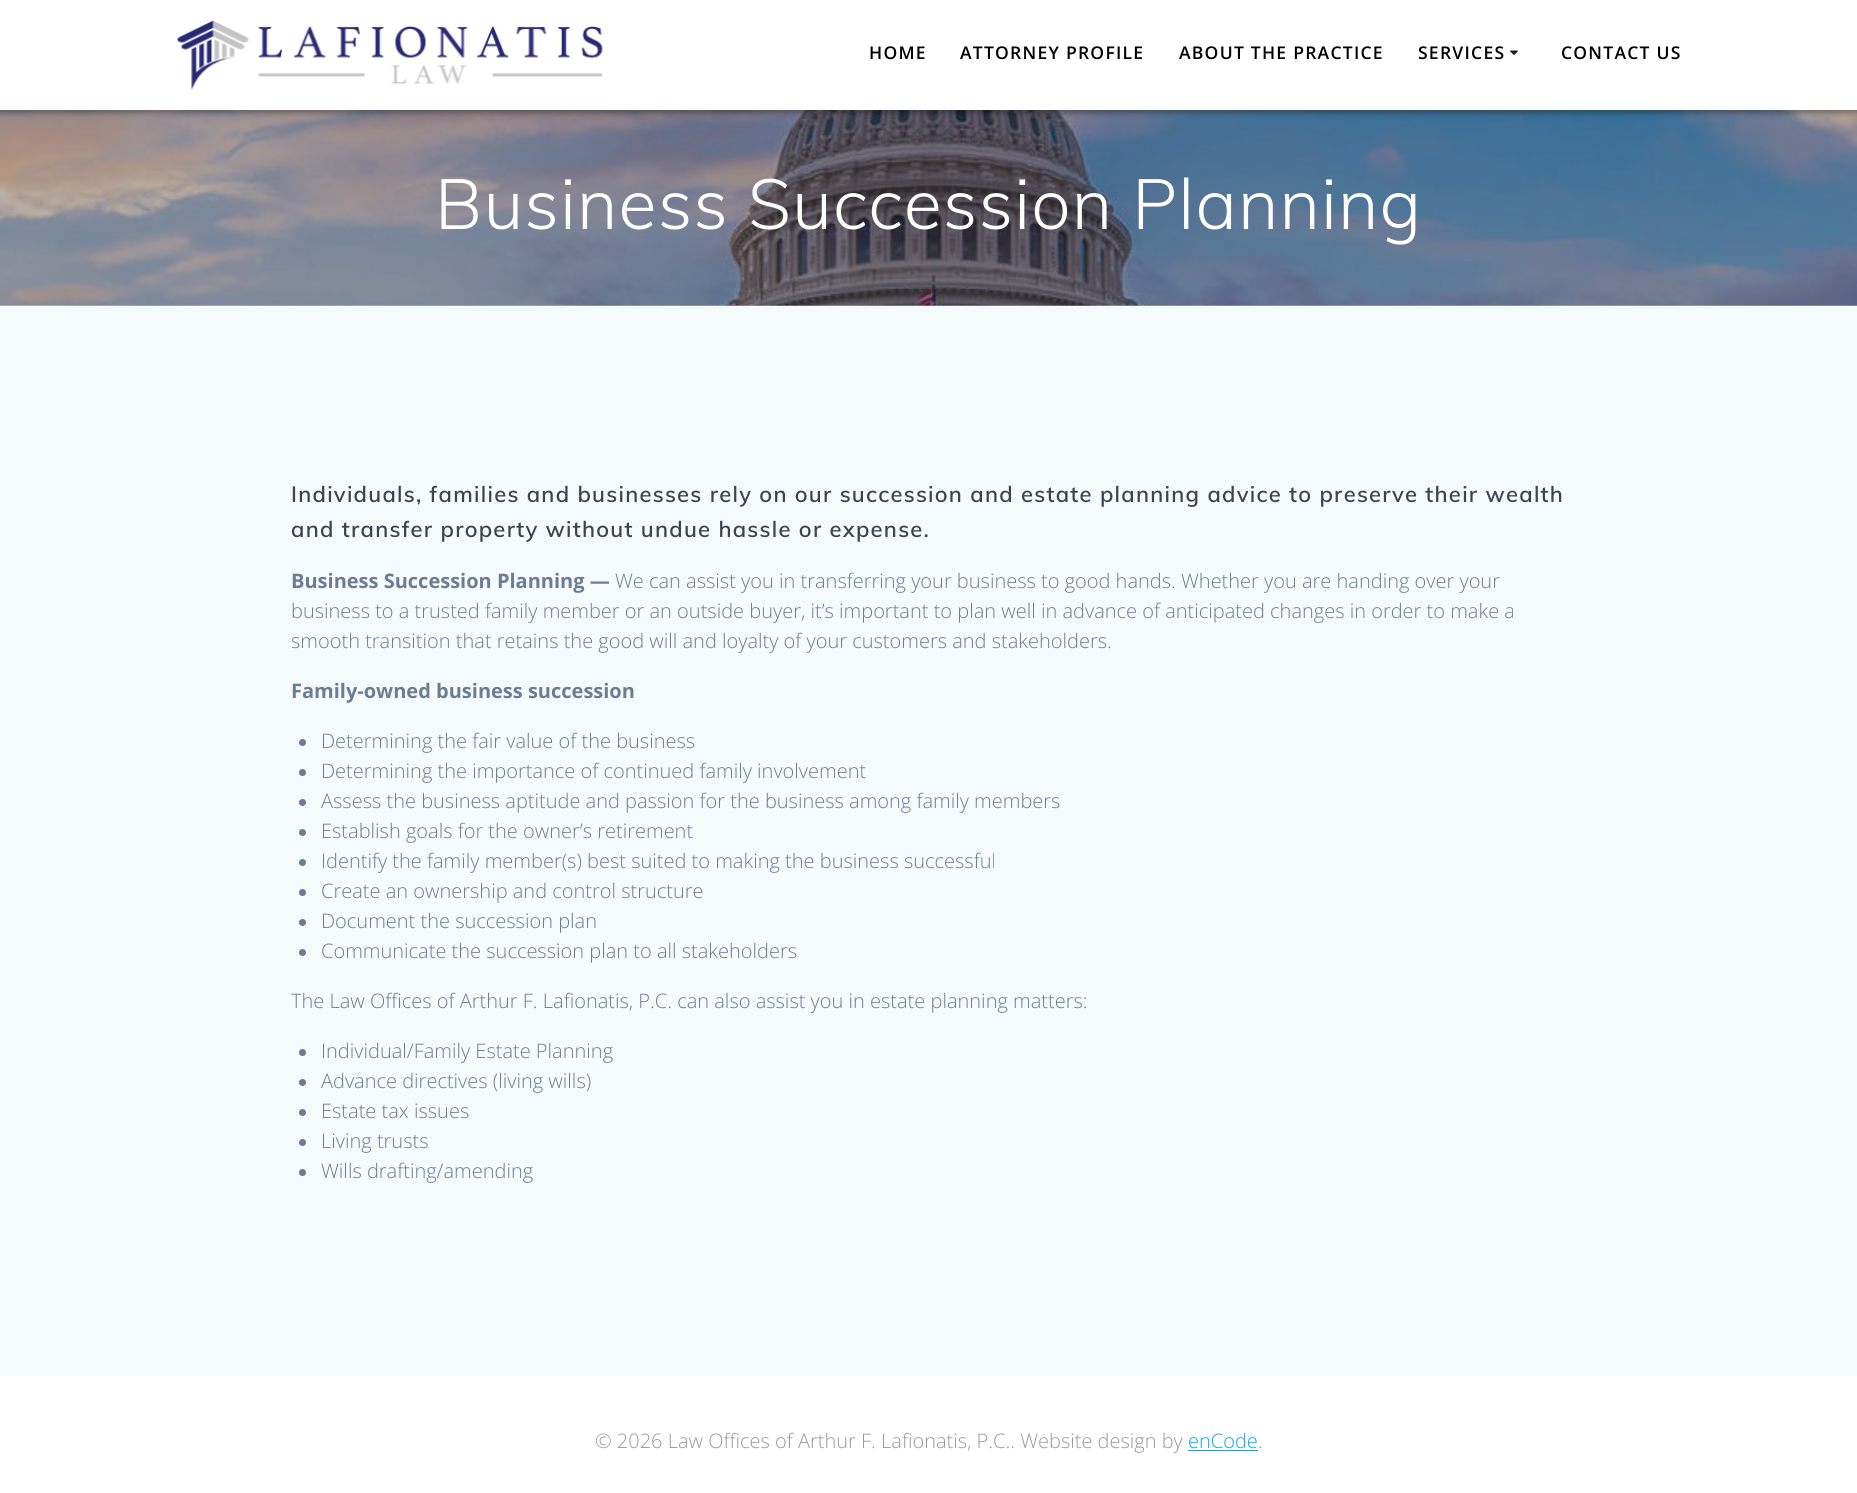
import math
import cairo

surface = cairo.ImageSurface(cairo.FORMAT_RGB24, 1857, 1493)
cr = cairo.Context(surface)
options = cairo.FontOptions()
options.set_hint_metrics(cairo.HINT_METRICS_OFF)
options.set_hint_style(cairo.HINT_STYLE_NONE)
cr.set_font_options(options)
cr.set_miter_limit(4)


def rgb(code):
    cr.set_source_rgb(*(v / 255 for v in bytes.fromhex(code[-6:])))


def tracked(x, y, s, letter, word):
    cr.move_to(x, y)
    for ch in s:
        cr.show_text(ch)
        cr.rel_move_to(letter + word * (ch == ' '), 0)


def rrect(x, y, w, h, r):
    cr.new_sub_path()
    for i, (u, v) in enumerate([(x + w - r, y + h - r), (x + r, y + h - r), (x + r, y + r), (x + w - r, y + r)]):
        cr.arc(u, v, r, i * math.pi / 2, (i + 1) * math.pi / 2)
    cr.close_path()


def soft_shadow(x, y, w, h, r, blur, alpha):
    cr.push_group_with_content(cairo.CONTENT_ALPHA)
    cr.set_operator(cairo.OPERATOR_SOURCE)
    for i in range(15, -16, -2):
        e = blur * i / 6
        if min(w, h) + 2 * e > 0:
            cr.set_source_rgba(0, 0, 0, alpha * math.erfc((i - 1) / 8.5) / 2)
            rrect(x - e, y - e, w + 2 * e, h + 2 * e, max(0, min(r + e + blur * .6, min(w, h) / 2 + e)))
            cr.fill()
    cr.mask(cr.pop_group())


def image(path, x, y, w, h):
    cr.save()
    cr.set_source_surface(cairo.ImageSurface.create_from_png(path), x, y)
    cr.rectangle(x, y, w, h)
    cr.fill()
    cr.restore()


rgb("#ffffff")
cr.paint()
image("img/3.png", 0, 110, 1857, 196)
rgb("#000000")
soft_shadow(-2, -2, 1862, 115, 0, 3, 0.33)
rgb("#ffffff")
cr.rectangle(0, 0, 1857, 110)
cr.fill()
image("img/1.png", 177, 20, 426, 70)
image("img/2.png", 1510, 50, 8, 5)
rgb("#f5fafd")
cr.rectangle(0, 306, 1857, 1070)
cr.fill()
rgb("#6b7c93")
cr.arc(302.5, 742.5, 3.5, 0, 2 * math.pi)
cr.fill()
cr.arc(302.5, 772.5, 3.5, 0, 2 * math.pi)
cr.fill()
cr.arc(302.5, 802.5, 3.5, 0, 2 * math.pi)
cr.fill()
cr.arc(302.5, 832.5, 3.5, 0, 2 * math.pi)
cr.fill()
cr.arc(302.5, 862.5, 3.5, 0, 2 * math.pi)
cr.fill()
cr.arc(302.5, 892.5, 3.5, 0, 2 * math.pi)
cr.fill()
cr.arc(302.5, 922.5, 3.5, 0, 2 * math.pi)
cr.fill()
cr.arc(302.5, 952.5, 3.5, 0, 2 * math.pi)
cr.fill()
cr.arc(302.5, 1052.5, 3.5, 0, 2 * math.pi)
cr.fill()
cr.arc(302.5, 1082.5, 3.5, 0, 2 * math.pi)
cr.fill()
cr.arc(302.5, 1112.5, 3.5, 0, 2 * math.pi)
cr.fill()
cr.arc(302.5, 1142.5, 3.5, 0, 2 * math.pi)
cr.fill()
cr.arc(302.5, 1172.5, 3.5, 0, 2 * math.pi)
cr.fill()
rgb("#03a9f4")
cr.rectangle(1188, 1450, 70, 1)
cr.fill()
cr.select_font_face("Open Sans SemiBold")
cr.set_font_size(17.5)
rgb("#000000")
for x, y, s in [
    (869, 59, "HOME"),
    (960, 59, "ATTORNEY PROFILE"),
    (1179, 59, "ABOUT THE PRACTICE"),
    (1418, 59, "SERVICES"),
    (1561, 59, "CONTACT US"),
]:
    tracked(x, y, s, 1.25, 0)
cr.select_font_face("Muli Light")
cr.set_font_size(70)
rgb("#ffffff")
tracked(435, 229, "Business Succession Planning", 1.1, 0)
cr.select_font_face("Muli SemiBold")
cr.set_font_size(22)
rgb("#3c424f")
tracked(291, 502, "Individuals, families and businesses rely on our succession and estate planning advice to preserve their wealth", 1.25, 0)
tracked(291, 537, "and transfer property without undue hassle or expense.", 1.25, 0)
cr.select_font_face("Open Sans", cairo.FONT_SLANT_NORMAL, cairo.FONT_WEIGHT_BOLD)
cr.set_font_size(20)
rgb("#6b7c93")
cr.move_to(291, 588)
cr.show_text("Business Succession Planning —")
cr.select_font_face("Open Sans Light")
for x, y, s in [
    (615, 588, "We can assist you in transferring your business to good hands. Whether you are handing over your"),
    (291, 618, "business to a trusted family member or an outside buyer, it’s important to plan well in advance of anticipated changes in order to make a"),
    (291, 648, "smooth transition that retains the good will and loyalty of your customers and stakeholders."),
]:
    cr.move_to(x, y)
    cr.show_text(s)
cr.select_font_face("Open Sans", cairo.FONT_SLANT_NORMAL, cairo.FONT_WEIGHT_BOLD)
cr.move_to(291, 698)
cr.show_text("Family-owned business succession")
cr.select_font_face("Open Sans Light")
for x, y, s in [
    (321, 748, "Determining the fair value of the business"),
    (321, 778, "Determining the importance of continued family involvement"),
    (321, 808, "Assess the business aptitude and passion for the business among family members"),
    (321, 838, "Establish goals for the owner’s retirement"),
    (321, 868, "Identify the family member(s) best suited to making the business successful"),
    (321, 898, "Create an ownership and control structure"),
    (321, 928, "Document the succession plan"),
    (321, 958, "Communicate the succession plan to all stakeholders"),
    (291, 1008, "The Law Offices of Arthur F. Lafionatis, P.C. can also assist you in estate planning matters:"),
    (321, 1058, "Individual/Family Estate Planning"),
    (321, 1088, "Advance directives (living wills)"),
    (321, 1118, "Estate tax issues"),
    (321, 1148, "Living trusts"),
    (321, 1178, "Wills drafting/amending"),
]:
    cr.move_to(x, y)
    cr.show_text(s)
rgb("#989898")
cr.move_to(595, 1448)
cr.show_text("© 2026 Law Offices of Arthur F. Lafionatis, P.C.. Website design by")
rgb("#03a9f4")
cr.move_to(1188, 1448)
cr.show_text("enCode")
rgb("#989898")
cr.move_to(1258, 1448)
cr.show_text(".")
surface.write_to_png("page.png")
